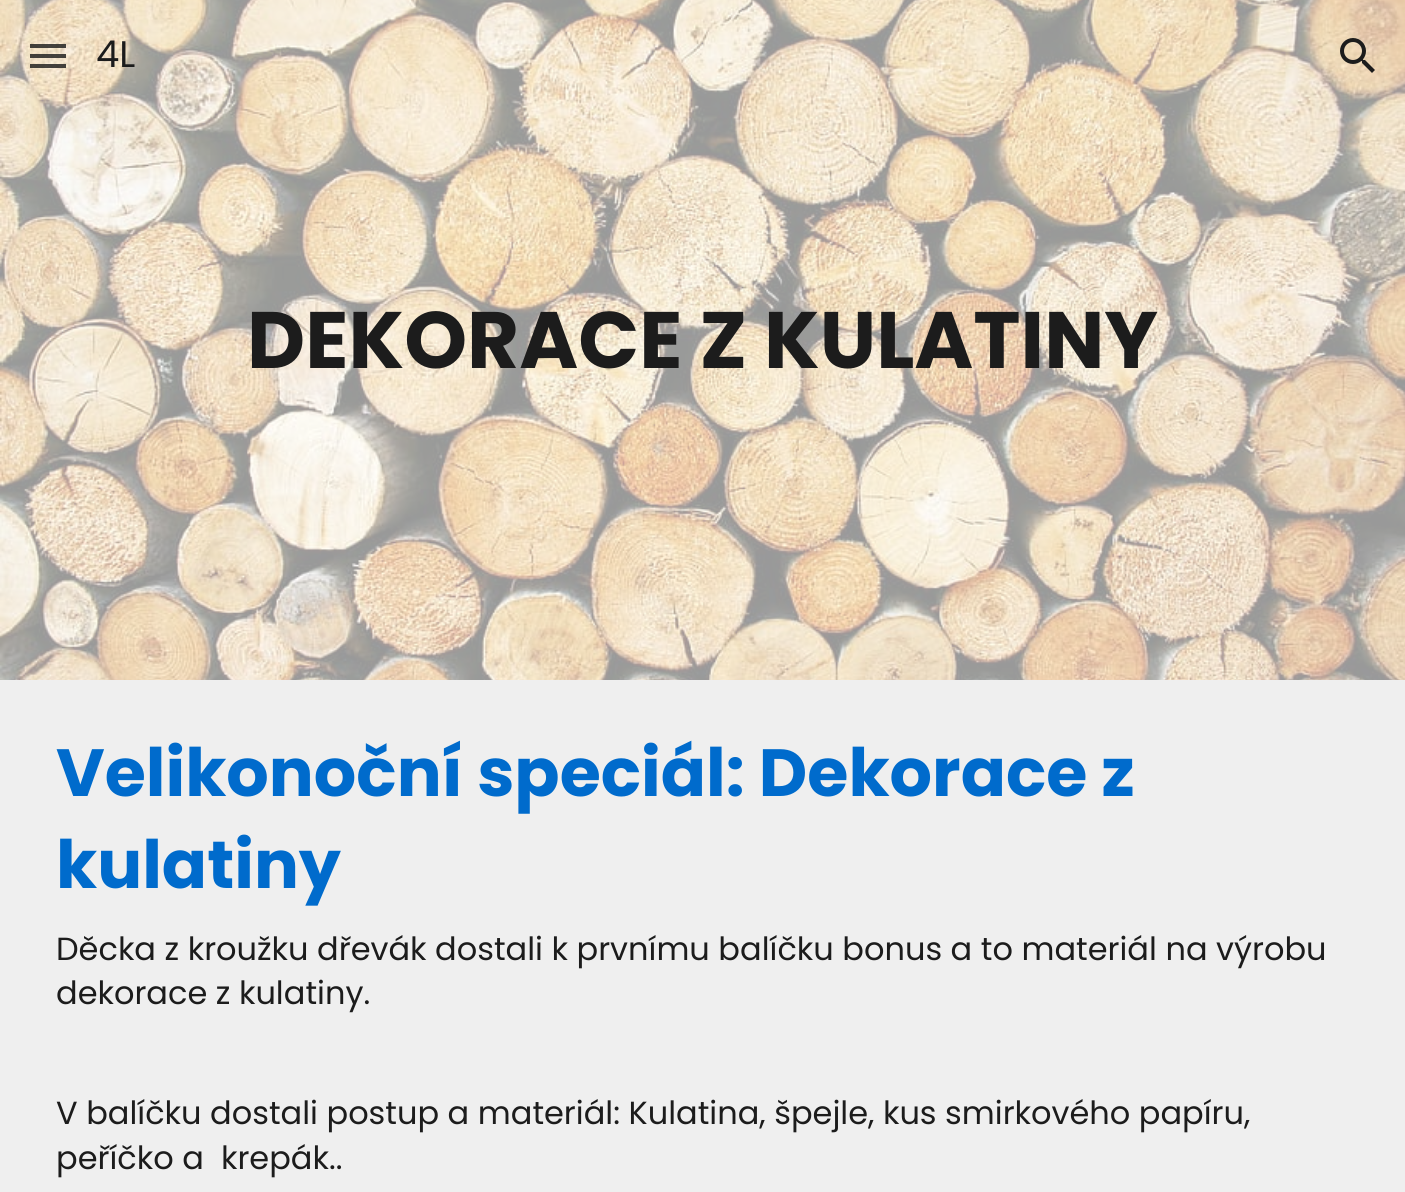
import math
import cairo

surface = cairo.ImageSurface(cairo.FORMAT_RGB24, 1405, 1192)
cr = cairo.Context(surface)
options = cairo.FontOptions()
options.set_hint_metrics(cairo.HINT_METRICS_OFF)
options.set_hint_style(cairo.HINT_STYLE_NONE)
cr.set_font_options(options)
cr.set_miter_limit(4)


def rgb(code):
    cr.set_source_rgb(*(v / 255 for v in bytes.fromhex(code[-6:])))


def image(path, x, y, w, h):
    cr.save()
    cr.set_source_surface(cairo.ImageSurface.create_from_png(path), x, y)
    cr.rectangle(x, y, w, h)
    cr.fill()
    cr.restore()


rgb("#efefef")
cr.paint()
image("img/2.png", 0, 0, 1405, 680)
cr.set_source_rgba(0.11, 0.11, 0.11, 0.82)
cr.rectangle(30, 44, 36, 4)
cr.fill()
cr.rectangle(30, 54, 36, 4)
cr.fill()
cr.rectangle(30, 64, 36, 4)
cr.fill()
image("img/1.png", 1340, 38, 35, 35)
cr.select_font_face("Poppins")
cr.set_font_size(37)
rgb("#1c1c1c")
cr.move_to(96, 67)
cr.show_text("4L")
cr.select_font_face("Poppins", cairo.FONT_SLANT_NORMAL, cairo.FONT_WEIGHT_BOLD)
cr.set_font_size(80)
cr.move_to(247, 368)
cr.show_text("DEKORACE Z KULATINY")
cr.set_font_size(66.7)
rgb("#006bcc")
cr.move_to(56, 796)
cr.show_text("Velikonoční speciál: Dekorace z")
cr.move_to(56, 888)
cr.show_text("kulatiny")
cr.select_font_face("Poppins")
cr.set_font_size(32)
rgb("#1c1c1c")
for x, y, s in [
    (56, 960, "Děcka z kroužku dřevák dostali k prvnímu balíčku bonus a to materiál na výrobu"),
    (56, 1004, "dekorace z kulatiny."),
    (56, 1124, "V balíčku dostali postup a materiál: Kulatina, špejle, kus smirkového papíru,"),
    (56, 1169, "peříčko a  krepák.."),
]:
    cr.move_to(x, y)
    cr.show_text(s)
surface.write_to_png("page.png")
